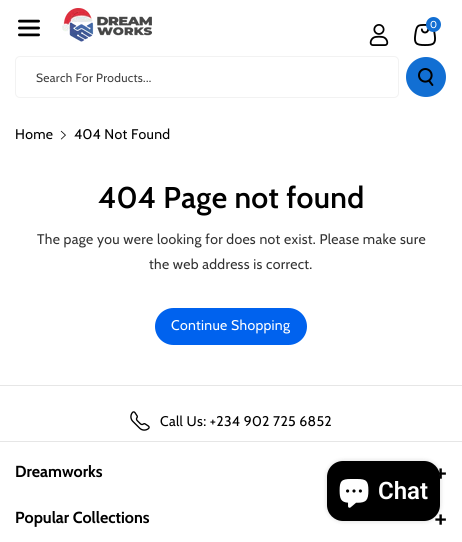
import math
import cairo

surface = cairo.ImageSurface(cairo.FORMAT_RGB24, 462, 542)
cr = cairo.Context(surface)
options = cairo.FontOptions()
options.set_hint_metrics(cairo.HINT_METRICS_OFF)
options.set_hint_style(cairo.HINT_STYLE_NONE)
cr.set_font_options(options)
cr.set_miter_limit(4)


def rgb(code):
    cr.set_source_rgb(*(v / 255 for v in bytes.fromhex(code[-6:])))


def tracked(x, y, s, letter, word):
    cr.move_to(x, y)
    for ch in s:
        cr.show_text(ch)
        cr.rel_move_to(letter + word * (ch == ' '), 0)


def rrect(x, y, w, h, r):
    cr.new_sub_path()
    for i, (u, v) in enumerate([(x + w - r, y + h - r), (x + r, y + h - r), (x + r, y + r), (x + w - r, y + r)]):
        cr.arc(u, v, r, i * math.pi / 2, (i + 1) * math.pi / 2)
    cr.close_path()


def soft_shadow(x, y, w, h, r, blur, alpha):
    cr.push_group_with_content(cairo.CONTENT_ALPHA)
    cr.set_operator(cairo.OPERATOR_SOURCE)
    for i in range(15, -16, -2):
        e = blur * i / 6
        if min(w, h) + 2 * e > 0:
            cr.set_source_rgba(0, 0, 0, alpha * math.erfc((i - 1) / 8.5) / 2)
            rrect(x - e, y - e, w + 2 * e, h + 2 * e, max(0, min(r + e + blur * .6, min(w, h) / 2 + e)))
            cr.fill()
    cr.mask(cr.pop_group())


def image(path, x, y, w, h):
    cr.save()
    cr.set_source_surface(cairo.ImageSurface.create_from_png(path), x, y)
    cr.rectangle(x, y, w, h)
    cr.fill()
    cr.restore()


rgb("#ffffff")
cr.paint()
image("img/1.png", 18, 19, 22, 18)
image("img/2.png", 62, 8, 90, 34)
image("img/3.png", 369, 24, 20, 22)
image("img/4.png", 414, 24, 22, 22)
rgb("#126fd3")
cr.arc(433.5, 24.5, 7.5, 0, 2 * math.pi)
cr.fill()
rrect(15.5, 56.5, 383, 41, 4.5)
rgb("#f2f2f2")
cr.set_line_width(1)
cr.stroke()
rgb("#126fd3")
cr.arc(426, 77, 20, 0, 2 * math.pi)
cr.fill()
image("img/5.png", 418, 68, 16, 18)
image("img/6.png", 60, 130, 6, 10)
rgb("#0062ee")
rrect(155, 308, 152, 37, 18.5)
cr.fill()
rgb("#e6e6e6")
cr.rectangle(0, 385, 462, 1)
cr.fill()
cr.rectangle(0, 441, 462, 1)
cr.fill()
image("img/7.png", 130, 411, 20, 20)
rgb("#000000")
soft_shadow(327, 461, 113, 60, 16, 2.5, 0.15)
rgb("#000000")
rrect(327, 461, 113, 60, 16)
cr.fill()
image("img/8.png", 339, 479, 30, 29)
cr.select_font_face("Cabin")
cr.set_font_size(10)
rgb("#ffffff")
tracked(430, 28, "0", 0.3, 0)
cr.set_font_size(12)
rgb("#404040")
tracked(36, 82, "Search For Products...", 0.3, 0)
cr.set_font_size(14)
rgb("#000000")
tracked(15, 139, "Home", 0.3, 0)
tracked(74, 139, "404 Not Found", 0.3, 0)
cr.select_font_face("Cabin SemiBold")
cr.set_font_size(30)
tracked(98, 208, "404 Page not found", 0.3, 0)
cr.select_font_face("Cabin")
cr.set_font_size(14)
rgb("#333333")
tracked(37, 244, "The page you were looking for does not exist. Please make sure", 0.3, 0)
tracked(149, 269, "the web address is correct.", 0.3, 0)
rgb("#ffffff")
tracked(171, 330, "Continue Shopping", 0.3, 0)
rgb("#000000")
tracked(160, 426, "Call Us: +234 902 725 6852", 0.3, 0)
cr.select_font_face("Cabin", cairo.FONT_SLANT_NORMAL, cairo.FONT_WEIGHT_BOLD)
cr.set_font_size(16)
cr.move_to(15, 477)
cr.show_text("Dreamworks")
cr.select_font_face("Cabin")
cr.set_font_size(30)
cr.move_to(434, 482)
cr.show_text("+")
cr.select_font_face("Cabin", cairo.FONT_SLANT_NORMAL, cairo.FONT_WEIGHT_BOLD)
cr.set_font_size(16)
cr.move_to(15, 523)
cr.show_text("Popular Collections")
cr.select_font_face("Cabin")
cr.set_font_size(30)
cr.move_to(434, 528)
cr.show_text("+")
cr.select_font_face("Roboto SemiBold")
cr.set_font_size(24)
rgb("#ffffff")
cr.move_to(378, 499)
cr.show_text("Chat")
surface.write_to_png("page.png")
